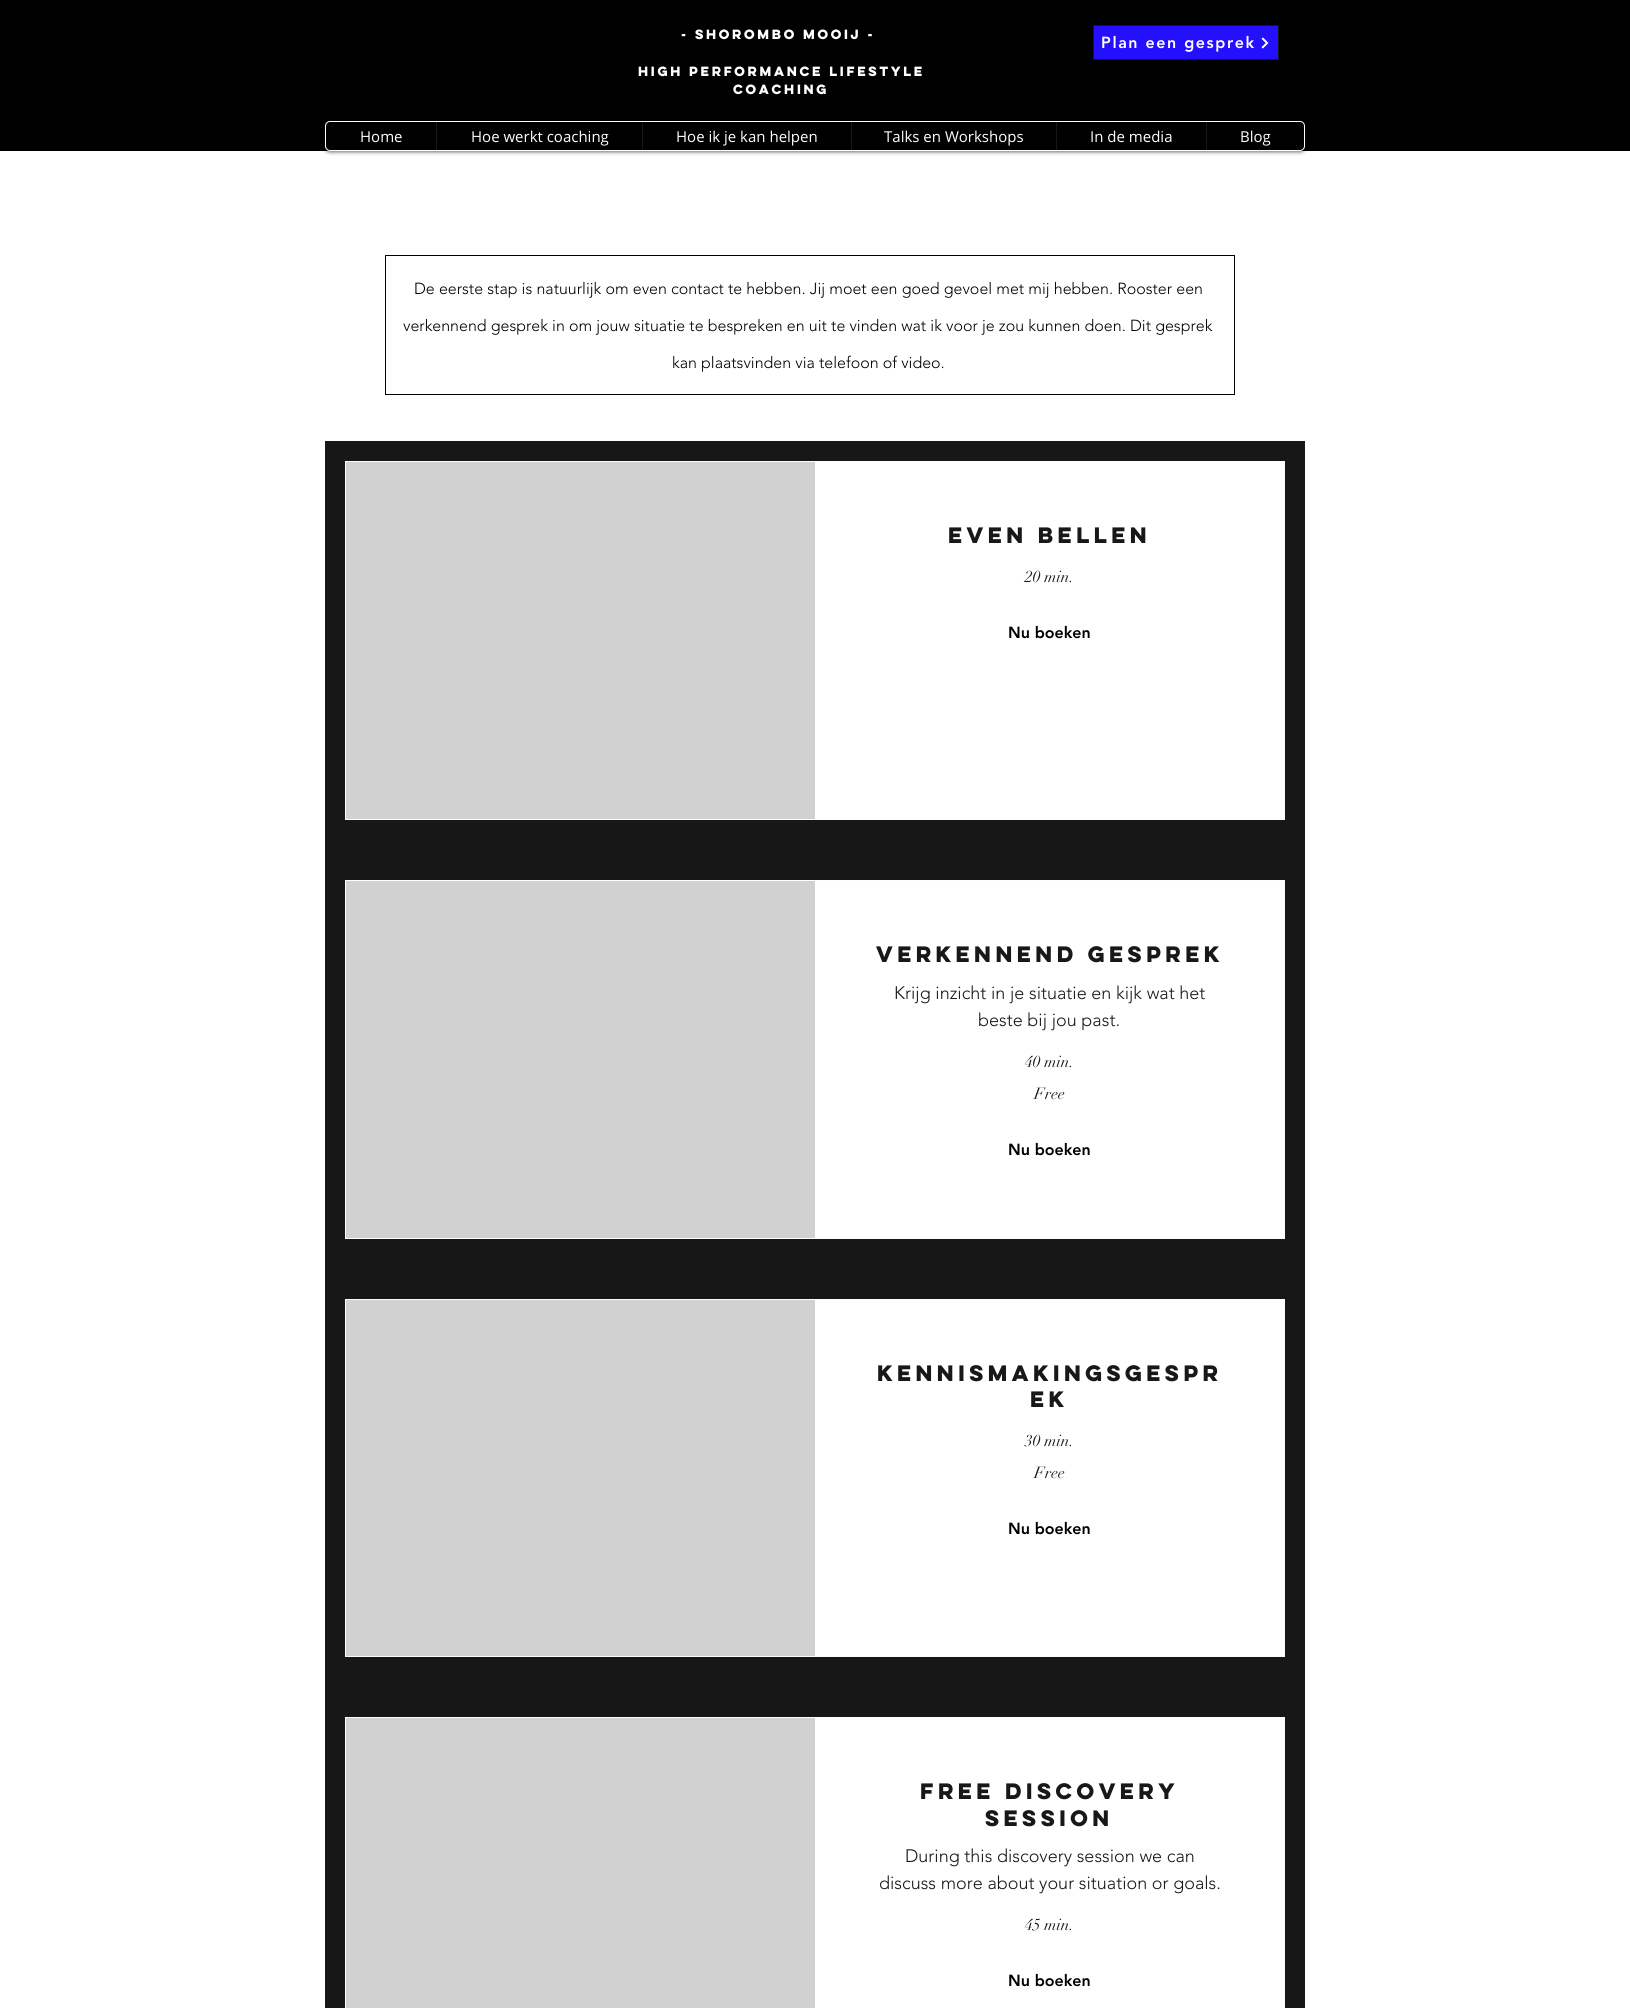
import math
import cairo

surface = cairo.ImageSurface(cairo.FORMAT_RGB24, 1630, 2008)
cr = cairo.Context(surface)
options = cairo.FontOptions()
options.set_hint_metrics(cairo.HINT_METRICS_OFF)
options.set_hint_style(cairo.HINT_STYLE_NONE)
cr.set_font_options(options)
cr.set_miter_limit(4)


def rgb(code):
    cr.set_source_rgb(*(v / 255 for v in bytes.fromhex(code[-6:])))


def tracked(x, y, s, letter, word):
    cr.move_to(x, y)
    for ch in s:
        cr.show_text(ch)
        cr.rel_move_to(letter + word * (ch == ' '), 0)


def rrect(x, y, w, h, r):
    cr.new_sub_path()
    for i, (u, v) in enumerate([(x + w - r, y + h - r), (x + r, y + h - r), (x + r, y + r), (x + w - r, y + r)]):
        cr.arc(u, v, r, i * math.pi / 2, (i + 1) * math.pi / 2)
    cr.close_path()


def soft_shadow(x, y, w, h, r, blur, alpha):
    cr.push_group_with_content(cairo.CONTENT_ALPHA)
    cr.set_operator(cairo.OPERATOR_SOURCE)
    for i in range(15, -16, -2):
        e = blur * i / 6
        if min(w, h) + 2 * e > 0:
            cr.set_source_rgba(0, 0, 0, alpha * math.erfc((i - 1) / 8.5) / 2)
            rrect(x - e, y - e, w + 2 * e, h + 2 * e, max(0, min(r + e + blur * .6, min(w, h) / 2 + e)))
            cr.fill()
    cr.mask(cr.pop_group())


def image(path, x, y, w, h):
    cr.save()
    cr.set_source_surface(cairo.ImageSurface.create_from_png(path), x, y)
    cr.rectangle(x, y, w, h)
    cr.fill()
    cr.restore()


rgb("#ffffff")
cr.paint()
rgb("#000000")
cr.rectangle(0, 0, 1630, 151)
cr.fill()
rgb("#240fff")
cr.rectangle(1093.5, 25.5, 185, 34)
cr.fill_preserve()
rgb("#181818")
cr.set_line_width(1)
cr.stroke()
image("img/1.png", 1261, 37, 8, 12)
cr.save()
cr.set_fill_rule(cairo.FILL_RULE_EVEN_ODD)
cr.new_path()
cr.move_to(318, 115)
cr.line_to(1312, 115)
cr.line_to(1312, 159)
cr.line_to(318, 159)
cr.close_path()
cr.move_to(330, 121)
cr.line_to(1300, 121)
cr.curve_to(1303, 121, 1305, 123, 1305, 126)
cr.line_to(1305, 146)
cr.curve_to(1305, 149, 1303, 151, 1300, 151)
cr.line_to(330, 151)
cr.curve_to(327, 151, 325, 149, 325, 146)
cr.line_to(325, 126)
cr.curve_to(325, 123, 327, 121, 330, 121)
cr.close_path()
cr.clip()
rgb("#000000")
soft_shadow(325, 122, 980, 30, 5, 2, 0.6)
cr.restore()
rrect(325.5, 121.5, 979, 29, 4.5)
rgb("#ffffff")
cr.stroke()
for x, y, w, h, color in [
    (436, 122, 1, 28, "#181818"),
    (642, 122, 1, 28, "#181818"),
    (851, 122, 1, 28, "#181818"),
    (1056, 122, 1, 28, "#181818"),
    (1206, 122, 1, 28, "#181818"),
]:
    rgb(color)
    cr.rectangle(x, y, w, h)
    cr.fill()
cr.rectangle(385.5, 255.5, 849, 139)
rgb("#000000")
cr.stroke()
rgb("#171717")
cr.rectangle(325, 441, 980, 1567)
cr.fill()
cr.rectangle(345.5, 461.5, 939, 358)
rgb("#fdfdfd")
cr.stroke()
rgb("#d1d1d1")
cr.rectangle(346, 462, 469, 357)
cr.fill()
rgb("#ffffff")
cr.rectangle(815, 462, 469, 357)
cr.fill()
cr.rectangle(345.5, 880.5, 939, 358)
rgb("#fdfdfd")
cr.stroke()
rgb("#d1d1d1")
cr.rectangle(346, 881, 469, 357)
cr.fill()
rgb("#ffffff")
cr.rectangle(815, 881, 469, 357)
cr.fill()
cr.rectangle(345.5, 1299.5, 939, 357)
rgb("#fdfdfd")
cr.stroke()
rgb("#d1d1d1")
cr.rectangle(346, 1300, 469, 356)
cr.fill()
rgb("#ffffff")
cr.rectangle(815, 1300, 469, 356)
cr.fill()
cr.rectangle(345.5, 1717.5, 939, 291)
rgb("#fdfdfd")
cr.stroke()
rgb("#d1d1d1")
cr.rectangle(346, 1718, 469, 290)
cr.fill()
rgb("#ffffff")
cr.rectangle(815, 1718, 469, 290)
cr.fill()
cr.select_font_face("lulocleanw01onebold", cairo.FONT_SLANT_NORMAL, cairo.FONT_WEIGHT_BOLD)
cr.set_font_size(12)
cr.move_to(681, 39)
cr.show_text("- shorombo mooij -")
cr.select_font_face("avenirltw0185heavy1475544 Black")
cr.set_font_size(16)
tracked(1101, 48, "Plan een gesprek", 1.6, 0)
cr.select_font_face("lulocleanw01onebold", cairo.FONT_SLANT_NORMAL, cairo.FONT_WEIGHT_BOLD)
cr.set_font_size(12)
cr.move_to(638, 76)
cr.show_text("High performance lifestyle")
cr.move_to(733, 94)
cr.show_text("coaching")
cr.select_font_face("Open Sans")
cr.set_font_size(15)
for x, y, s in [
    (360, 142, "Home"),
    (471, 142, "Hoe werkt coaching"),
    (676, 142, "Hoe ik je kan helpen"),
    (884, 142, "Talks en Workshops"),
    (1090, 142, "In de media"),
    (1240, 142, "Blog"),
]:
    cr.move_to(x, y)
    cr.show_text(s)
cr.select_font_face("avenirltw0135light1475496 Light")
cr.set_font_size(16)
rgb("#000000")
for x, y, s in [
    (414, 294, "De eerste stap is natuurlijk om even contact te hebben. Jij moet een goed gevoel met mij hebben. Rooster een"),
    (403, 331, "verkennend gesprek in om jouw situatie te bespreken en uit te vinden wat ik voor je zou kunnen doen. Dit gesprek"),
    (672, 368, "kan plaatsvinden via telefoon of video."),
]:
    cr.move_to(x, y)
    cr.show_text(s)
cr.select_font_face("lulocleanw01onebold", cairo.FONT_SLANT_NORMAL, cairo.FONT_WEIGHT_BOLD)
cr.set_font_size(20)
rgb("#181818")
cr.move_to(948, 543)
cr.show_text("Even bellen")
cr.select_font_face("didot")
cr.set_font_size(16)
cr.move_to(1025, 582)
cr.show_text("20 min.")
cr.select_font_face("avenirltw0185heavy1475544 Black")
rgb("#000000")
cr.move_to(1008, 638)
cr.show_text("Nu boeken")
cr.select_font_face("lulocleanw01onebold", cairo.FONT_SLANT_NORMAL, cairo.FONT_WEIGHT_BOLD)
cr.set_font_size(20)
rgb("#181818")
cr.move_to(876, 962)
cr.show_text("Verkennend gesprek")
cr.select_font_face("avenirltw0135light1475496 Light")
cr.set_font_size(18)
cr.move_to(894, 999)
cr.show_text("Krijg inzicht in je situatie en kijk wat het")
cr.move_to(978, 1026)
cr.show_text("beste bij jou past.")
cr.select_font_face("didot")
cr.set_font_size(16)
cr.move_to(1025, 1067)
cr.show_text("40 min.")
cr.move_to(1034, 1099)
cr.show_text("Free")
cr.select_font_face("avenirltw0185heavy1475544 Black")
rgb("#000000")
cr.move_to(1008, 1155)
cr.show_text("Nu boeken")
cr.select_font_face("lulocleanw01onebold", cairo.FONT_SLANT_NORMAL, cairo.FONT_WEIGHT_BOLD)
cr.set_font_size(20)
rgb("#181818")
cr.move_to(877, 1381)
cr.show_text("Kennismakingsgespr")
cr.move_to(1030, 1407)
cr.show_text("ek")
cr.select_font_face("didot")
cr.set_font_size(16)
cr.move_to(1025, 1446)
cr.show_text("30 min.")
cr.move_to(1034, 1478)
cr.show_text("Free")
cr.select_font_face("avenirltw0185heavy1475544 Black")
rgb("#000000")
cr.move_to(1008, 1534)
cr.show_text("Nu boeken")
cr.select_font_face("lulocleanw01onebold", cairo.FONT_SLANT_NORMAL, cairo.FONT_WEIGHT_BOLD)
cr.set_font_size(20)
rgb("#181818")
cr.move_to(920, 1799)
cr.show_text("Free Discovery")
cr.move_to(985, 1826)
cr.show_text("Session")
cr.select_font_face("avenirltw0135light1475496 Light")
cr.set_font_size(18)
cr.move_to(905, 1862)
cr.show_text("During this discovery session we can")
cr.move_to(879, 1889)
cr.show_text("discuss more about your situation or goals.")
cr.select_font_face("didot")
cr.set_font_size(16)
cr.move_to(1025, 1930)
cr.show_text("45 min.")
cr.select_font_face("avenirltw0185heavy1475544 Black")
rgb("#000000")
cr.move_to(1008, 1986)
cr.show_text("Nu boeken")
surface.write_to_png("page.png")
